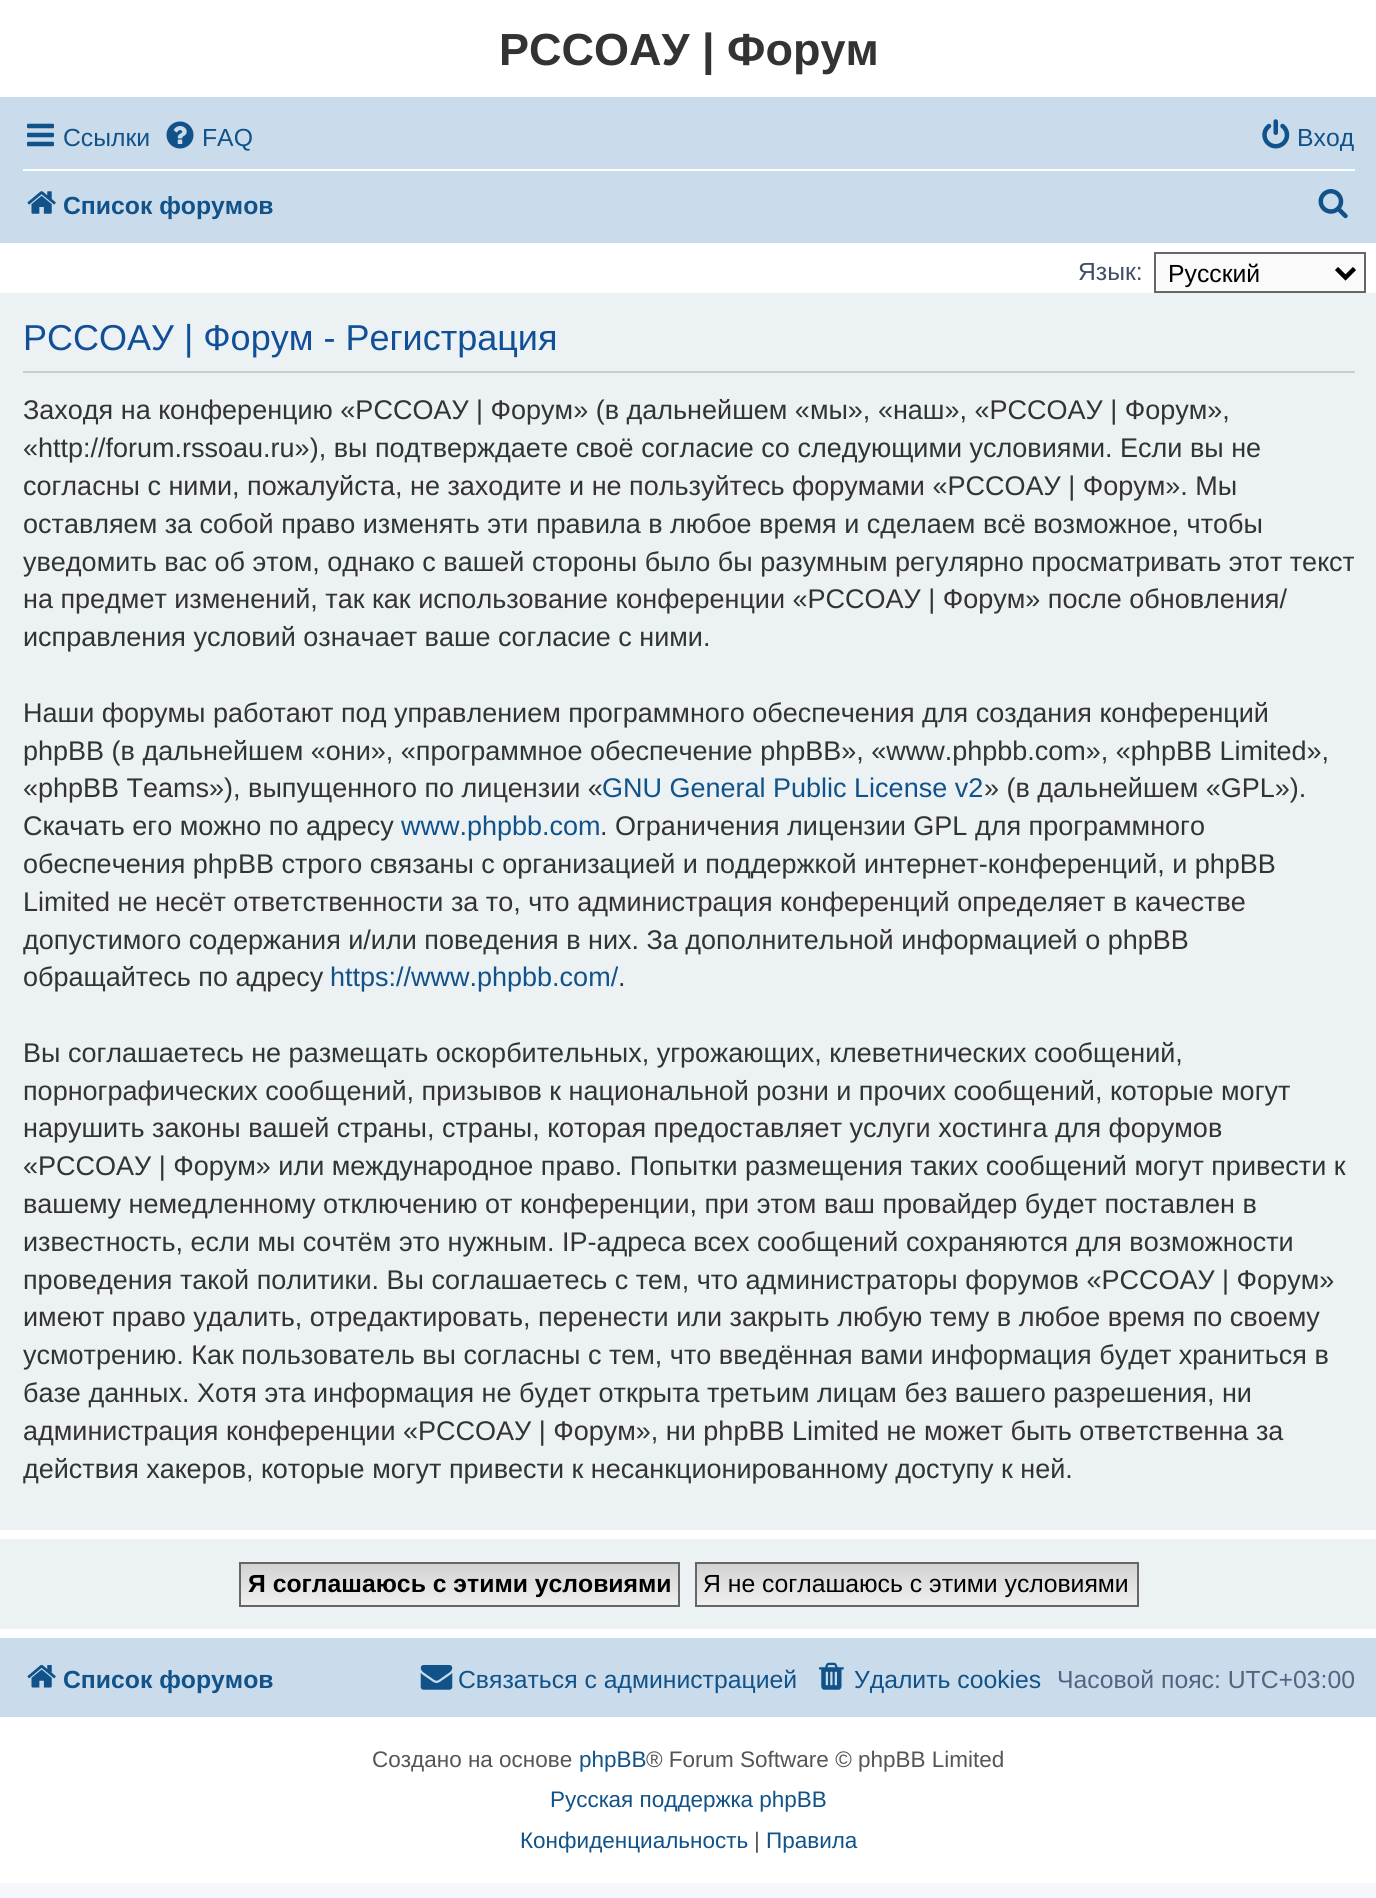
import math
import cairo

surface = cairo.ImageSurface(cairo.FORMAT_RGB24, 1376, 1898)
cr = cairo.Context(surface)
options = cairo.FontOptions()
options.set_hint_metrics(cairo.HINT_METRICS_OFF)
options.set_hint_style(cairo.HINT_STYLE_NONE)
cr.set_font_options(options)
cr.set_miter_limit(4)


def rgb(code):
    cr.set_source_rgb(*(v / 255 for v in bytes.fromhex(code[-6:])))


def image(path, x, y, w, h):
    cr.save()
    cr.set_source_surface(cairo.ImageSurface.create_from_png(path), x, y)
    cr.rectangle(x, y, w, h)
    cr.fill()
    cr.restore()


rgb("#f5f7fa")
cr.paint()
rgb("#ffffff")
cr.rectangle(0, 0, 1376, 1883)
cr.fill()
rgb("#cadceb")
cr.rectangle(0, 97, 1376, 146)
cr.fill()
image("img/1.png", 27, 123, 27, 24)
image("img/2.png", 166, 121, 28, 28)
image("img/3.png", 1262, 119, 28, 30)
rgb("#ffffff")
cr.rectangle(23, 169, 1332, 2)
cr.fill()
image("img/4.png", 27, 191, 29, 23)
image("img/5.png", 1318, 189, 30, 30)
rgb("#fafafa")
cr.rectangle(1155, 253, 210, 39)
cr.fill_preserve()
rgb("#666666")
cr.stroke()
cr.new_path()
cr.move_to(1336.5, 268.5)
cr.line_to(1345.5, 277.5)
cr.line_to(1354.5, 268.5)
rgb("#000000")
cr.set_line_width(4.5)
cr.stroke()
for x, y, w, h, color in [
    (0, 293, 1376, 1237, "#ecf1f3"),
    (23, 371, 1332, 2, "#cccccc"),
    (0, 1539, 1376, 90, "#ecf1f3"),
    (241, 1604, 437, 1, "#efefef"),
]:
    rgb(color)
    cr.rectangle(x, y, w, h)
    cr.fill()
gradient = cairo.LinearGradient(459, 1564, 459, 1604)
gradient.add_color_stop_rgba(0, 0.824, 0.824, 0.824, 1)
gradient.add_color_stop_rgba(1, 0.937, 0.937, 0.937, 1)
cr.set_source(gradient)
cr.rectangle(241, 1564, 437, 40)
cr.fill()
cr.rectangle(240, 1563, 439, 43)
rgb("#666666")
cr.set_line_width(2)
cr.stroke()
rgb("#efefef")
cr.rectangle(697, 1604, 440, 1)
cr.fill()
gradient = cairo.LinearGradient(917, 1564, 917, 1604)
gradient.add_color_stop_rgba(0, 0.824, 0.824, 0.824, 1)
gradient.add_color_stop_rgba(1, 0.937, 0.937, 0.937, 1)
cr.set_source(gradient)
cr.rectangle(697, 1564, 440, 40)
cr.fill()
cr.rectangle(696, 1563, 442, 43)
rgb("#666666")
cr.stroke()
rgb("#cadceb")
cr.rectangle(0, 1638, 1376, 79)
cr.fill()
image("img/6.png", 27, 1665, 29, 23)
image("img/7.png", 420, 1665, 33, 25)
image("img/8.png", 819, 1662, 25, 28)
cr.select_font_face("Liberation Sans", cairo.FONT_SLANT_NORMAL, cairo.FONT_WEIGHT_BOLD)
cr.set_font_size(45)
rgb("#333333")
cr.move_to(499, 65)
cr.show_text("РССОАУ | Форум")
cr.select_font_face("Liberation Sans")
cr.set_font_size(24.75)
rgb("#105289")
for x, y, s in [
    (63, 146, "Ссылки"),
    (202, 146, "FAQ"),
    (1297, 146, "Вход"),
]:
    cr.move_to(x, y)
    cr.show_text(s)
cr.select_font_face("Liberation Sans", cairo.FONT_SLANT_NORMAL, cairo.FONT_WEIGHT_BOLD)
cr.move_to(63, 214)
cr.show_text("Список форумов")
cr.select_font_face("Liberation Sans")
rgb("#425067")
cr.move_to(1078, 280)
cr.show_text("Язык:")
rgb("#000000")
cr.move_to(1168, 282)
cr.show_text("Русский")
cr.set_font_size(36)
rgb("#115098")
cr.move_to(23, 350)
cr.show_text("РССОАУ | Форум - Регистрация")
cr.set_font_size(27)
rgb("#333333")
for x, y, s in [
    (23, 419, "Заходя на конференцию «РССОАУ | Форум» (в дальнейшем «мы», «наш», «РССОАУ | Форум»,"),
    (23, 457, "«http://forum.rssoau.ru»), вы подтверждаете своё согласие со следующими условиями. Если вы не"),
    (23, 495, "согласны с ними, пожалуйста, не заходите и не пользуйтесь форумами «РССОАУ | Форум». Мы"),
    (23, 533, "оставляем за собой право изменять эти правила в любое время и сделаем всё возможное, чтобы"),
    (23, 571, "уведомить вас об этом, однако с вашей стороны было бы разумным регулярно просматривать этот текст"),
    (23, 608, "на предмет изменений, так как использование конференции «РССОАУ | Форум» после обновления/"),
    (23, 646, "исправления условий означает ваше согласие с ними."),
    (23, 722, "Наши форумы работают под управлением программного обеспечения для создания конференций"),
    (23, 760, "phpBB (в дальнейшем «они», «программное обеспечение phpBB», «www.phpbb.com», «phpBB Limited»,"),
    (23, 797, "«phpBB Teams»), выпущенного по лицензии «"),
]:
    cr.move_to(x, y)
    cr.show_text(s)
rgb("#105289")
cr.move_to(602, 797)
cr.show_text("GNU General Public License v2")
rgb("#333333")
cr.move_to(984, 797)
cr.show_text("» (в дальнейшем «GPL»).")
cr.move_to(23, 835)
cr.show_text("Скачать его можно по адресу")
rgb("#105289")
cr.move_to(401, 835)
cr.show_text("www.phpbb.com")
rgb("#333333")
for x, y, s in [
    (600, 835, ". Ограничения лицензии GPL для программного"),
    (23, 873, "обеспечения phpBB строго связаны с организацией и поддержкой интернет-конференций, и phpBB"),
    (23, 911, "Limited не несёт ответственности за то, что администрация конференций определяет в качестве"),
]:
    cr.move_to(x, y)
    cr.show_text(s)
cr.save()
cr.rectangle(23, 392, 1332, 1098)
cr.clip()
cr.move_to(23, 949)
cr.show_text("допустимого содержания и/или поведения в них. За дополнительной информацией о phpBB")
cr.restore()
cr.move_to(23, 986)
cr.show_text("обращайтесь по адресу")
rgb("#105289")
cr.move_to(330, 986)
cr.show_text("https://www.phpbb.com/")
rgb("#333333")
for x, y, s in [
    (618, 986, "."),
    (23, 1062, "Вы соглашаетесь не размещать оскорбительных, угрожающих, клеветнических сообщений,"),
    (23, 1100, "порнографических сообщений, призывов к национальной розни и прочих сообщений, которые могут"),
    (23, 1137, "нарушить законы вашей страны, страны, которая предоставляет услуги хостинга для форумов"),
    (23, 1175, "«РССОАУ | Форум» или международное право. Попытки размещения таких сообщений могут привести к"),
    (23, 1213, "вашему немедленному отключению от конференции, при этом ваш провайдер будет поставлен в"),
    (23, 1251, "известность, если мы сочтём это нужным. IP-адреса всех сообщений сохраняются для возможности"),
    (23, 1289, "проведения такой политики. Вы соглашаетесь с тем, что администраторы форумов «РССОАУ | Форум»"),
    (23, 1326, "имеют право удалить, отредактировать, перенести или закрыть любую тему в любое время по своему"),
    (23, 1364, "усмотрению. Как пользователь вы согласны с тем, что введённая вами информация будет храниться в"),
    (23, 1402, "базе данных. Хотя эта информация не будет открыта третьим лицам без вашего разрешения, ни"),
    (23, 1440, "администрация конференции «РССОАУ | Форум», ни phpBB Limited не может быть ответственна за"),
]:
    cr.move_to(x, y)
    cr.show_text(s)
cr.save()
cr.rectangle(23, 392, 1332, 1098)
cr.clip()
cr.move_to(23, 1478)
cr.show_text("действия хакеров, которые могут привести к несанкционированному доступу к ней.")
cr.restore()
cr.select_font_face("Liberation Sans", cairo.FONT_SLANT_NORMAL, cairo.FONT_WEIGHT_BOLD)
cr.set_font_size(24.75)
rgb("#000000")
cr.move_to(248, 1592)
cr.show_text("Я соглашаюсь с этими условиями")
cr.select_font_face("Liberation Sans")
cr.move_to(703, 1592)
cr.show_text("Я не соглашаюсь с этими условиями")
cr.select_font_face("Liberation Sans", cairo.FONT_SLANT_NORMAL, cairo.FONT_WEIGHT_BOLD)
rgb("#105289")
cr.move_to(63, 1688)
cr.show_text("Список форумов")
cr.select_font_face("Liberation Sans")
cr.move_to(458, 1688)
cr.show_text("Связаться с администрацией")
cr.move_to(854, 1688)
cr.show_text("Удалить cookies")
rgb("#536482")
cr.move_to(1057, 1688)
cr.show_text("Часовой пояс: UTC+03:00")
cr.set_font_size(22.5)
rgb("#555555")
cr.move_to(372, 1767)
cr.show_text("Создано на основе")
rgb("#105289")
cr.move_to(579, 1767)
cr.show_text("phpBB")
rgb("#555555")
cr.move_to(646, 1767)
cr.show_text("® Forum Software © phpBB Limited")
rgb("#105289")
cr.move_to(550, 1807)
cr.show_text("Русская поддержка phpBB")
cr.move_to(520, 1848)
cr.show_text("Конфиденциальность")
rgb("#555555")
cr.move_to(754, 1848)
cr.show_text("|")
rgb("#105289")
cr.move_to(766, 1848)
cr.show_text("Правила")
surface.write_to_png("page.png")
